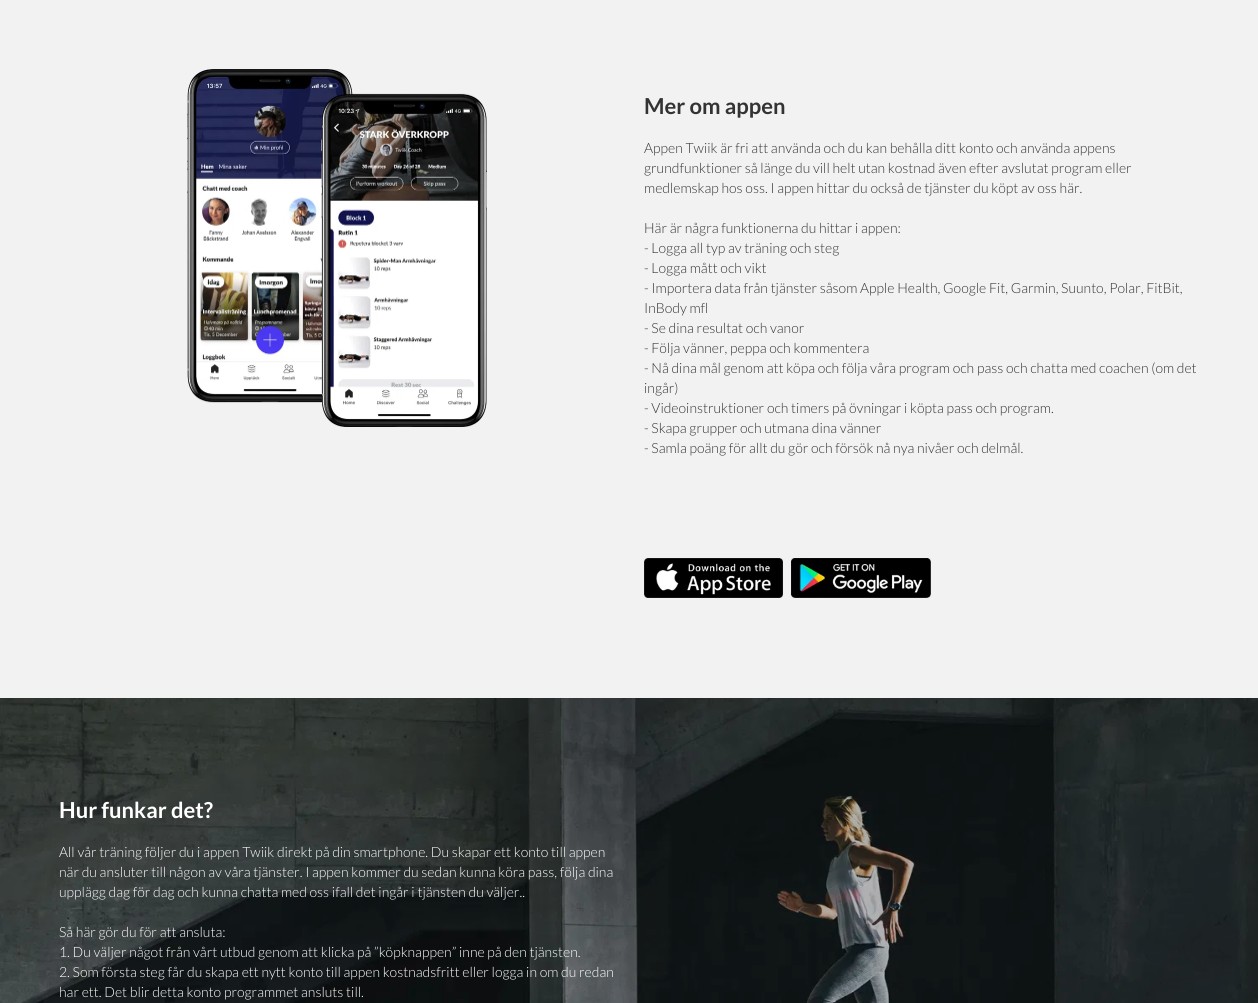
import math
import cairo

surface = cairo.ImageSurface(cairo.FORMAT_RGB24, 1258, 1003)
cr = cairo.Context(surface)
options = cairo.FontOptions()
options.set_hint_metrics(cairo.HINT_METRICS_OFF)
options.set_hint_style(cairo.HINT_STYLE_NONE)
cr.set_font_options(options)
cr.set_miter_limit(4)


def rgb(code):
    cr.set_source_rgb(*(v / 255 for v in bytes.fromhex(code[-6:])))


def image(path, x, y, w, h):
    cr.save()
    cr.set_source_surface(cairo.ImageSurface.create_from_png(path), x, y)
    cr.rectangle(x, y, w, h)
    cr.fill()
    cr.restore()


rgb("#f2f2f2")
cr.paint()
image("img/1.png", 187, 69, 300, 358)
image("img/2.png", 644, 558, 139, 40)
image("img/3.png", 791, 558, 140, 40)
image("img/4.png", 0, 698, 1258, 305)
cr.select_font_face("Lato", cairo.FONT_SLANT_NORMAL, cairo.FONT_WEIGHT_BOLD)
cr.set_font_size(22)
rgb("#333333")
cr.move_to(644, 114)
cr.show_text("Mer om appen")
cr.select_font_face("Lato Light")
cr.set_font_size(14)
for x, y, s in [
    (644, 153, "Appen Twiik är fri att använda och du kan behålla ditt konto och använda appens"),
    (644, 173, "grundfunktioner så länge du vill helt utan kostnad även efter avslutat program eller"),
    (644, 193, "medlemskap hos oss. I appen hittar du också de tjänster du köpt av oss här."),
    (644, 233, "Här är några funktionerna du hittar i appen:"),
    (644, 253, "- Logga all typ av träning och steg"),
    (644, 273, "- Logga mått och vikt"),
    (644, 293, "- Importera data från tjänster såsom Apple Health, Google Fit, Garmin, Suunto, Polar, FitBit,"),
    (644, 313, "InBody mfl"),
    (644, 333, "- Se dina resultat och vanor"),
    (644, 353, "- Följa vänner, peppa och kommentera"),
    (644, 373, "- Nå dina mål genom att köpa och följa våra program och pass och chatta med coachen (om det"),
    (644, 393, "ingår)"),
    (644, 413, "- Videoinstruktioner och timers på övningar i köpta pass och program."),
    (644, 433, "- Skapa grupper och utmana dina vänner"),
    (644, 453, "- Samla poäng för allt du gör och försök nå nya nivåer och delmål."),
]:
    cr.move_to(x, y)
    cr.show_text(s)
cr.select_font_face("Lato", cairo.FONT_SLANT_NORMAL, cairo.FONT_WEIGHT_BOLD)
cr.set_font_size(22)
rgb("#ffffff")
cr.move_to(59, 818)
cr.show_text("Hur funkar det?")
cr.select_font_face("Lato Light")
cr.set_font_size(14)
for x, y, s in [
    (59, 857, "All vår träning följer du i appen Twiik direkt på din smartphone. Du skapar ett konto till appen"),
    (59, 877, "när du ansluter till någon av våra tjänster. I appen kommer du sedan kunna köra pass, följa dina"),
    (59, 897, "upplägg dag för dag och kunna chatta med oss ifall det ingår i tjänsten du väljer.."),
    (59, 937, "Så här gör du för att ansluta:"),
    (59, 957, "1. Du väljer något från vårt utbud genom att klicka på ”köpknappen” inne på den tjänsten."),
    (59, 977, "2. Som första steg får du skapa ett nytt konto till appen kostnadsfritt eller logga in om du redan"),
    (59, 997, "har ett. Det blir detta konto programmet ansluts till."),
]:
    cr.move_to(x, y)
    cr.show_text(s)
surface.write_to_png("page.png")
